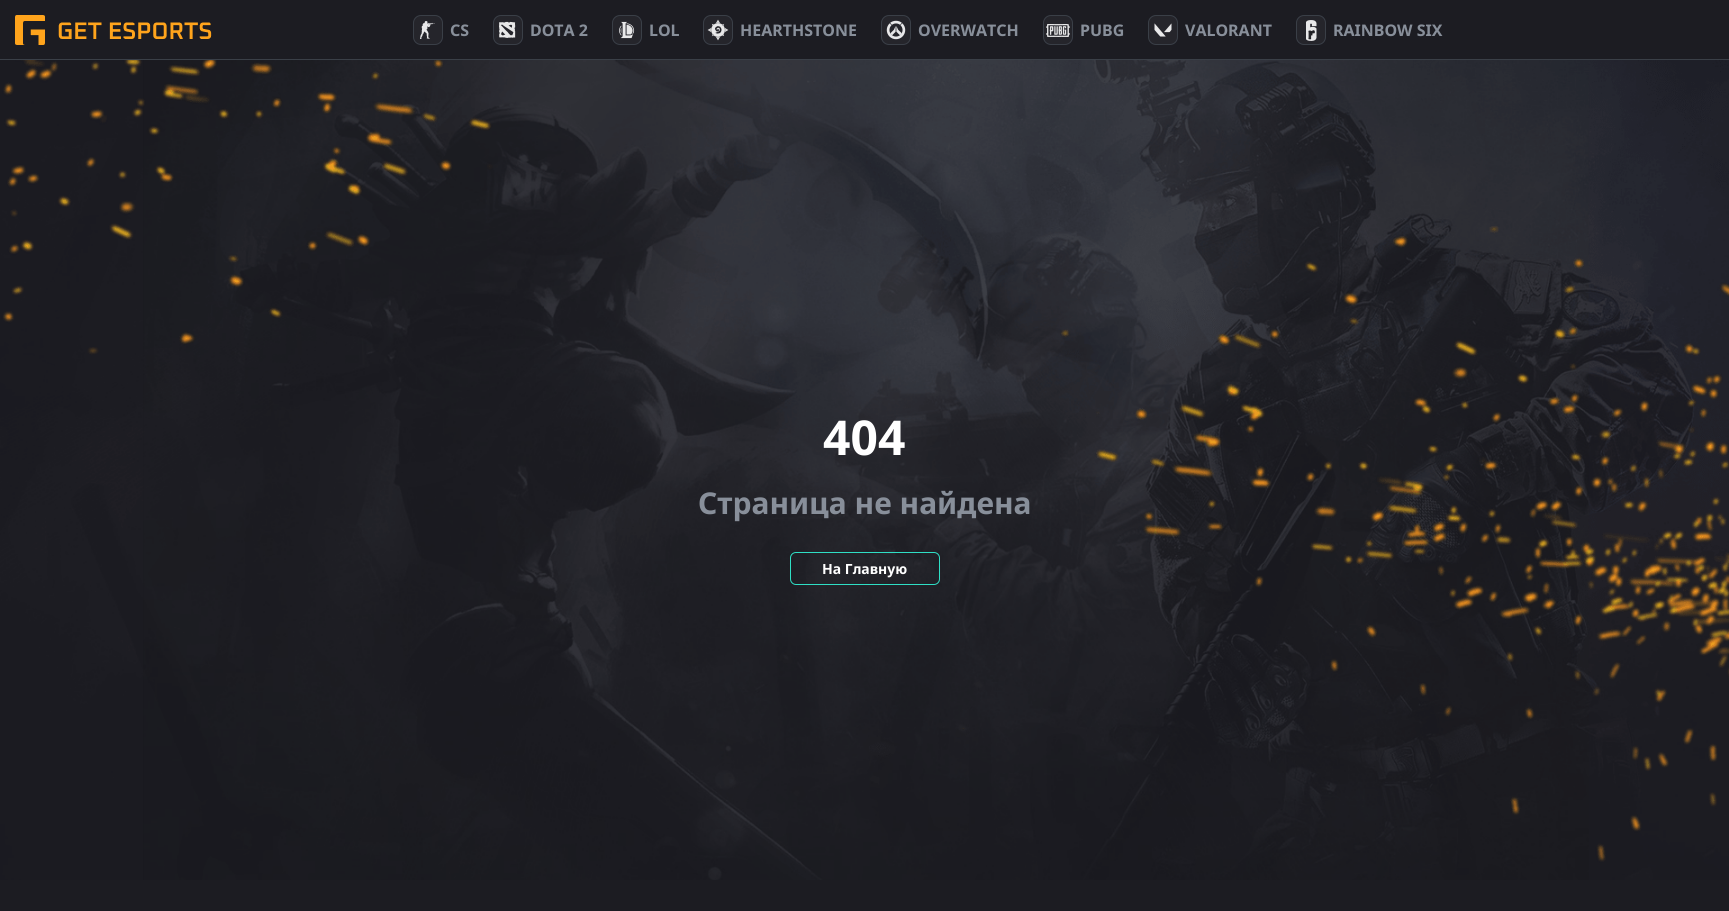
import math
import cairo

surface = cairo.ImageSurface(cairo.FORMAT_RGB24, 1729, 911)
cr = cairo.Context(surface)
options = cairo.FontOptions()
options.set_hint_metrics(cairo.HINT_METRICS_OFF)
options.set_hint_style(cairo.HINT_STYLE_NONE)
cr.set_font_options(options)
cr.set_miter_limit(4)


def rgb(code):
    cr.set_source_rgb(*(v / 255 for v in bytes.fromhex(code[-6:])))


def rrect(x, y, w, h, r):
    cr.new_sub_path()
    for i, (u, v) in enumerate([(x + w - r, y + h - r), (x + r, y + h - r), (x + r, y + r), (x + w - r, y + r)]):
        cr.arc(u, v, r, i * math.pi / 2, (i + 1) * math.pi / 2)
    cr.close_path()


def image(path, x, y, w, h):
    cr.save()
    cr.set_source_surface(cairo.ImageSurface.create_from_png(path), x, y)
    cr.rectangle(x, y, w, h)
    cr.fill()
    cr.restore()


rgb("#1c1c22")
cr.paint()
image("img/1.png", 0, 60, 1729, 820)
image("img/2.png", 15, 15, 197, 30)
rgb("#25252b")
rrect(413.5, 15.5, 29, 29, 7.5)
cr.fill_preserve()
rgb("#3a3f47")
cr.set_line_width(1)
cr.stroke()
image("img/3.png", 420, 21, 15, 18)
rgb("#25252b")
rrect(493.5, 15.5, 29, 29, 7.5)
cr.fill_preserve()
rgb("#3a3f47")
cr.stroke()
image("img/4.png", 499, 21, 17, 17)
rgb("#25252b")
rrect(612.5, 15.5, 29, 29, 7.5)
cr.fill_preserve()
rgb("#3a3f47")
cr.stroke()
image("img/5.png", 619, 21, 16, 18)
rgb("#25252b")
rrect(703.5, 15.5, 29, 29, 7.5)
cr.fill_preserve()
rgb("#3a3f47")
cr.stroke()
image("img/6.png", 707, 19, 22, 22)
rgb("#25252b")
rrect(881.5, 15.5, 29, 29, 7.5)
cr.fill_preserve()
rgb("#3a3f47")
cr.stroke()
image("img/7.png", 886, 20, 20, 20)
rgb("#25252b")
rrect(1043.5, 15.5, 29, 29, 7.5)
cr.fill_preserve()
rgb("#3a3f47")
cr.stroke()
image("img/8.png", 1046, 24, 24, 13)
rgb("#25252b")
rrect(1148.5, 15.5, 29, 29, 7.5)
cr.fill_preserve()
rgb("#3a3f47")
cr.stroke()
image("img/9.png", 1154, 23, 18, 14)
rgb("#25252b")
rrect(1296.5, 15.5, 29, 29, 7.5)
cr.fill_preserve()
rgb("#3a3f47")
cr.stroke()
image("img/10.png", 1306, 20, 11, 21)
cr.rectangle(0, 59, 1729, 1)
cr.fill()
rrect(790.5, 552.5, 149, 32, 5.5)
rgb("#2fdfc5")
cr.stroke()
cr.select_font_face("Noto Sans", cairo.FONT_SLANT_NORMAL, cairo.FONT_WEIGHT_BOLD)
cr.set_font_size(16)
rgb("#888f9a")
for x, y, s in [
    (450, 36, "CS"),
    (530, 36, "DOTA 2"),
    (649, 36, "LOL"),
    (740, 36, "HEARTHSTONE"),
    (918, 36, "OVERWATCH"),
    (1080, 36, "PUBG"),
    (1185, 36, "VALORANT"),
    (1333, 36, "RAINBOW SIX"),
]:
    cr.move_to(x, y)
    cr.show_text(s)
cr.set_font_size(48)
rgb("#ffffff")
cr.move_to(823, 455)
cr.show_text("404")
cr.set_font_size(30)
rgb("#888f9a")
cr.move_to(698, 514)
cr.show_text("Страница не найдена")
cr.set_font_size(14)
rgb("#ffffff")
cr.move_to(822, 574)
cr.show_text("На Главную")
surface.write_to_png("page.png")
